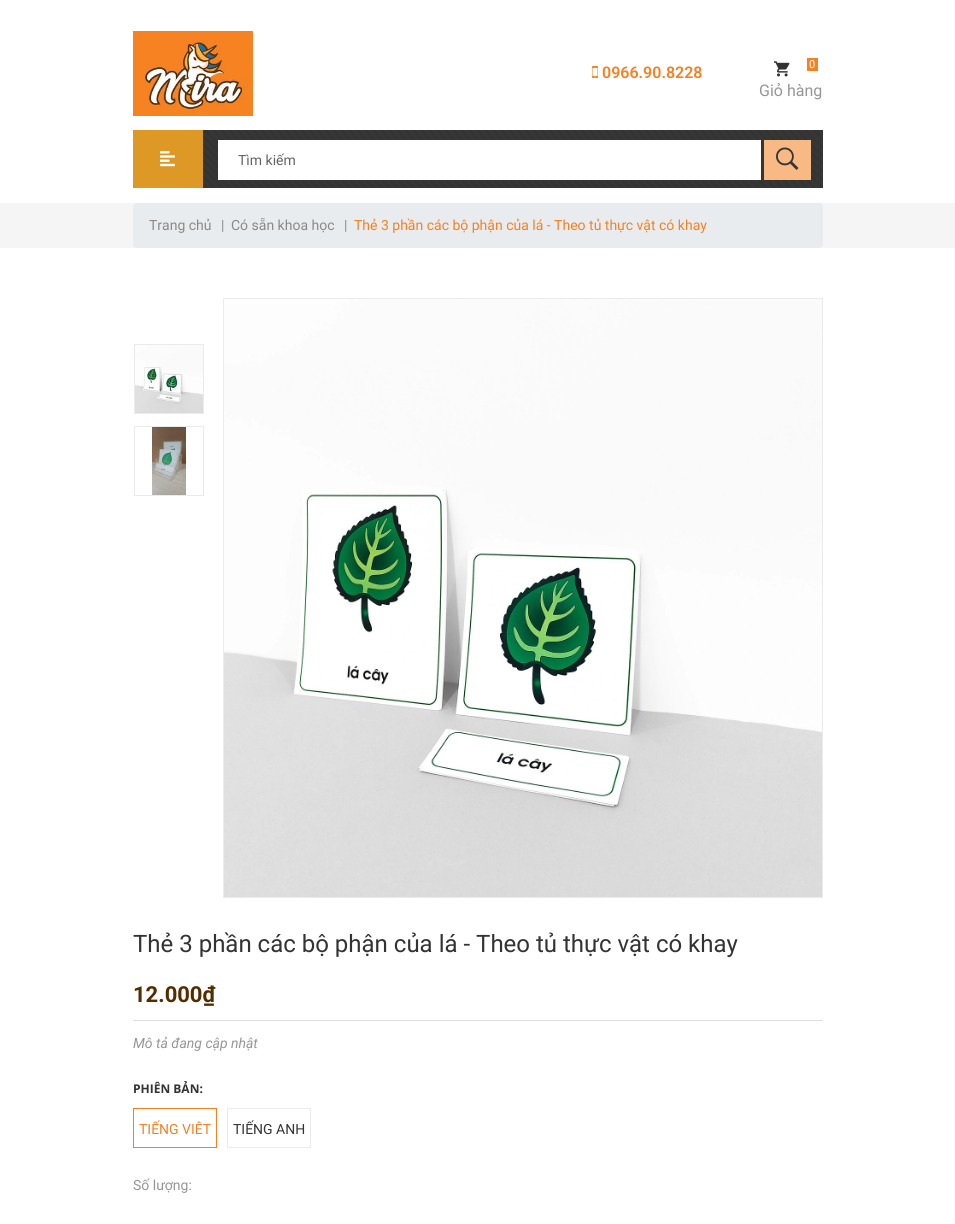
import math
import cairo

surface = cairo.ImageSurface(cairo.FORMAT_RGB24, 955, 1224)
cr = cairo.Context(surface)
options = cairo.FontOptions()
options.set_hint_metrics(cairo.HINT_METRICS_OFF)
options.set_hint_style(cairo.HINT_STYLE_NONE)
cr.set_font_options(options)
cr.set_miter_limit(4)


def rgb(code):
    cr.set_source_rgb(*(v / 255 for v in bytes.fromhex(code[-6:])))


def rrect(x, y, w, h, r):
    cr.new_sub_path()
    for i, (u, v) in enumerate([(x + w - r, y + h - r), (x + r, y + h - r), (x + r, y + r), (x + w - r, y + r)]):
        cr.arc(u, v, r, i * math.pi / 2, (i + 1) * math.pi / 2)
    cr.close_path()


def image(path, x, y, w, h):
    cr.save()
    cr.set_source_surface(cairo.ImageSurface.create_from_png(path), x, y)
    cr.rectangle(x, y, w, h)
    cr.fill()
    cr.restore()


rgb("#ffffff")
cr.paint()
rgb("#dd9825")
cr.rectangle(133, 130, 70, 58)
cr.fill()
image("img/1.png", 160, 151, 15, 16)
image("img/2.png", 203, 130, 620, 58)
image("img/3.png", 774, 61, 16, 16)
for x, y, w, h, color in [
    (807, 58, 11, 13, "#f58220"),
    (218, 140, 543, 40, "#ffffff"),
    (764, 140, 47, 40, "#f9b984"),
]:
    rgb(color)
    cr.rectangle(x, y, w, h)
    cr.fill()
image("img/4.png", 776, 147, 23, 23)
image("img/5.png", 133, 31, 120, 85)
image("img/6.png", 592, 66, 6, 12)
rgb("#f5f5f5")
cr.rectangle(0, 203, 955, 45)
cr.fill()
rgb("#e9ecef")
rrect(133, 203, 690, 45, 4)
cr.fill()
cr.rectangle(134.5, 344.5, 69, 69)
rgb("#ebebeb")
cr.set_line_width(1)
cr.stroke()
image("img/7.png", 135, 345, 68, 68)
cr.rectangle(134.5, 426.5, 69, 69)
cr.stroke()
image("img/8.png", 152, 427, 34, 68)
cr.rectangle(223.5, 298.5, 599, 599)
cr.stroke()
image("img/9.png", 224, 299, 598, 598)
rgb("#dddddd")
cr.rectangle(133, 1020, 690, 1)
cr.fill()
cr.rectangle(133.5, 1108.5, 83, 39)
rgb("#f48123")
cr.stroke()
cr.rectangle(227.5, 1108.5, 83, 39)
rgb("#ebebeb")
cr.stroke()
cr.select_font_face("Roboto")
cr.set_font_size(11)
rgb("#ffffff")
cr.move_to(809, 68)
cr.show_text("0")
cr.set_font_size(16)
rgb("#969696")
cr.move_to(759, 96)
cr.show_text("Giỏ hàng")
cr.set_font_size(14)
rgb("#636363")
cr.move_to(238, 165)
cr.show_text("Tìm kiếm")
cr.select_font_face("Roboto SemiBold")
cr.set_font_size(16)
rgb("#f48123")
cr.move_to(602, 78)
cr.show_text("0966.90.8228")
cr.select_font_face("Roboto")
cr.set_font_size(14)
rgb("#898989")
for x, y, s in [
    (149, 230, "Trang chủ"),
    (221, 230, "|"),
    (231, 230, "Có sẵn khoa học"),
    (344, 230, "|"),
]:
    cr.move_to(x, y)
    cr.show_text(s)
rgb("#f48123")
cr.move_to(354, 230)
cr.show_text("Thẻ 3 phần các bộ phận của lá - Theo tủ thực vật có khay")
cr.set_font_size(24)
rgb("#333333")
cr.move_to(133, 952)
cr.show_text("Thẻ 3 phần các bộ phận của lá - Theo tủ thực vật có khay")
cr.select_font_face("Roboto", cairo.FONT_SLANT_NORMAL, cairo.FONT_WEIGHT_BOLD)
cr.set_font_size(22)
rgb("#552b00")
cr.move_to(133, 1002)
cr.show_text("12.000₫")
cr.select_font_face("Roboto", cairo.FONT_SLANT_ITALIC)
cr.set_font_size(14)
rgb("#969696")
cr.move_to(133, 1048)
cr.show_text("Mô tả đang cập nhật")
cr.select_font_face("Open Sans", cairo.FONT_SLANT_NORMAL, cairo.FONT_WEIGHT_BOLD)
cr.set_font_size(12)
rgb("#333333")
cr.move_to(133, 1093)
cr.show_text("PHIÊN BẢN:")
cr.select_font_face("Roboto")
cr.set_font_size(14)
rgb("#f48123")
cr.move_to(139, 1134)
cr.show_text("TIẾNG VIÊT")
rgb("#333333")
cr.move_to(233, 1134)
cr.show_text("TIẾNG ANH")
rgb("#969696")
cr.move_to(133, 1190)
cr.show_text("Số lượng:")
surface.write_to_png("page.png")
